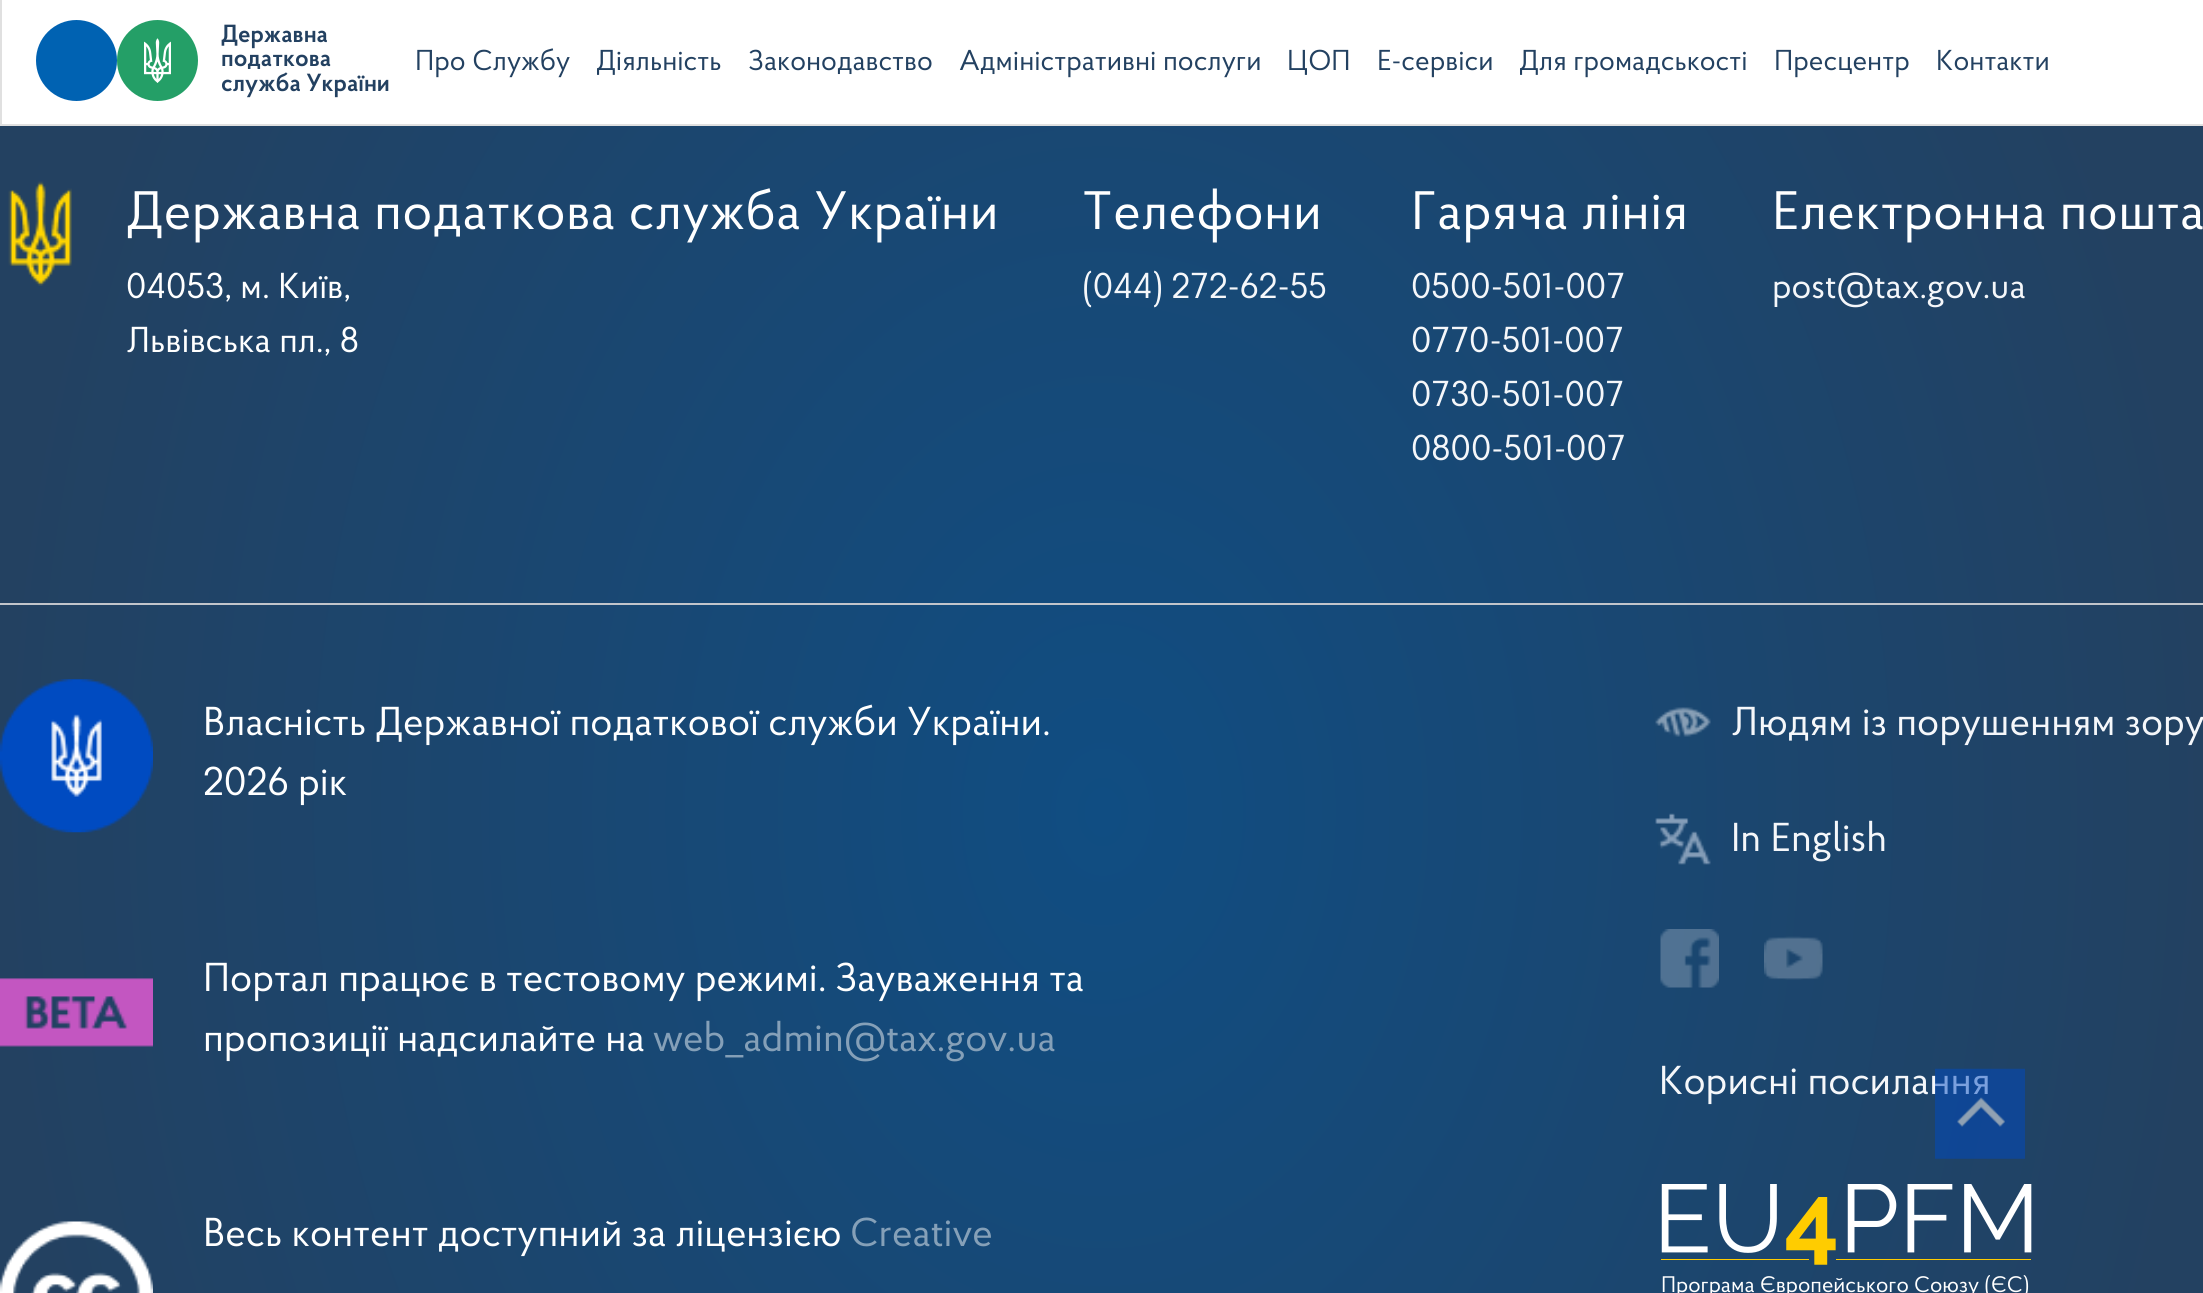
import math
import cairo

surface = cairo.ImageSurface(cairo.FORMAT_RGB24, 2203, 1293)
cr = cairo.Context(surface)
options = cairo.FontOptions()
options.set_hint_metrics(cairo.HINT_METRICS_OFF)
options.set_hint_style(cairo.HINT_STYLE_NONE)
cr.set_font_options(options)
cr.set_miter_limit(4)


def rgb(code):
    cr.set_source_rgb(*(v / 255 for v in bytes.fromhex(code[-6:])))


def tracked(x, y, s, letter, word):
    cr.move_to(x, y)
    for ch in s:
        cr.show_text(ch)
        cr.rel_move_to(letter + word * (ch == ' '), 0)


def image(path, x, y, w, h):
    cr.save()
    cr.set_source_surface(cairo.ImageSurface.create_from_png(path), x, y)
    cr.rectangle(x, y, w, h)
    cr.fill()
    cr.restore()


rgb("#ffffff")
cr.paint()
cr.rectangle(1, -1, 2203, 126)
rgb("#e0e0e0")
cr.stroke()
rgb("#0062b2")
cr.arc(76.5, 60.5, 40.5, 0, 2 * math.pi)
cr.fill()
rgb("#249f67")
cr.arc(157.5, 60.5, 40.5, 0, 2 * math.pi)
cr.fill()
image("img/1.png", 144, 38, 27, 45)
gradient = cairo.RadialGradient(0, 0, 0, 0, 0, 1)
gradient.set_matrix(cairo.Matrix(1 / 1103, 0, 0, 1 / 1502, -1 * 1103 / 1103, -1 * 813 / 1502))
gradient.add_color_stop_rgba(0, 0.063, 0.302, 0.51, 1)
gradient.add_color_stop_rgba(1, 0.137, 0.255, 0.38, 1)
cr.set_source(gradient)
cr.rectangle(0, 126, 2203, 1167)
cr.fill()
rgb("#c2c5cb")
cr.rectangle(0, 603, 2203, 2)
cr.fill()
image("img/2.png", 8, 181, 64, 105)
image("img/3.png", 0, 679, 153, 154)
image("img/4.png", 0, 978, 153, 69)
image("img/5.png", 0, 1221, 153, 72)
image("img/6.png", 1655, 707, 56, 30)
image("img/7.png", 1655, 813, 56, 52)
image("img/8.png", 1660, 929, 59, 59)
image("img/9.png", 1764, 936, 59, 44)
image("img/10.png", 1661, 1184, 371, 81)
cr.select_font_face("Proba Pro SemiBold")
cr.set_font_size(24.75)
rgb("#234161")
for x, y, s in [
    (221, 42, "Державна"),
    (221, 66, "податкова"),
    (221, 91, "служба України"),
]:
    cr.move_to(x, y)
    cr.show_text(s)
cr.select_font_face("Proba Pro")
cr.set_font_size(28.75)
for x, y, s in [
    (415, 70, "Про Службу"),
    (596, 70, "Діяльність"),
    (748, 70, "Законодавство"),
    (959, 70, "Адміністративні послуги"),
    (1287, 70, "ЦОП"),
    (1377, 70, "Е-сервіси"),
    (1519, 70, "Для громадськості"),
    (1774, 70, "Пресцентр"),
    (1936, 70, "Контакти"),
]:
    cr.move_to(x, y)
    cr.show_text(s)
cr.set_font_size(54)
rgb("#ffffff")
tracked(126, 229, "Державна податкова служба України", 0.55, 0)
cr.set_font_size(36)
cr.move_to(126, 298)
cr.show_text("04053, м. Київ,")
cr.move_to(126, 352)
cr.show_text("Львівська пл., 8")
cr.set_font_size(54)
tracked(1082, 229, "Телефони", 0.55, 0)
cr.set_font_size(36)
rgb("#f5f7fa")
cr.move_to(1082, 298)
cr.show_text("(044) 272-62-55")
cr.set_font_size(54)
rgb("#ffffff")
tracked(1411, 229, "Гаряча лінія", 0.55, 0)
cr.set_font_size(36)
rgb("#f5f7fa")
for x, y, s in [
    (1411, 298, "0500-501-007"),
    (1411, 352, "0770-501-007"),
    (1411, 406, "0730-501-007"),
    (1411, 460, "0800-501-007"),
]:
    cr.move_to(x, y)
    cr.show_text(s)
cr.set_font_size(54)
rgb("#ffffff")
tracked(1772, 229, "Електронна пошта", 0.55, 0)
cr.set_font_size(36)
rgb("#f5f7fa")
cr.move_to(1772, 298)
cr.show_text("post@tax.gov.ua")
cr.set_font_size(40.3)
rgb("#ffffff")
for x, y, s in [
    (203, 735, "Власність Державної податкової служби України."),
    (203, 795, "2026 рік"),
    (203, 991, "Портал працює в тестовому режимі."),
    (835, 991, "Зауваження та"),
    (203, 1051, "пропозиції надсилайте на"),
]:
    cr.move_to(x, y)
    cr.show_text(s)
rgb("#85a0b8")
cr.move_to(653, 1051)
cr.show_text("web_admin@tax.gov.ua")
rgb("#ffffff")
cr.move_to(203, 1246)
cr.show_text("Весь контент доступний за ліцензією")
rgb("#85a0b8")
cr.move_to(850, 1246)
cr.show_text("Creative")
rgb("#f5f7fa")
for x, y, s in [
    (1731, 735, "Людям із порушенням зору"),
    (1731, 851, "In English"),
    (1659, 1094, "Корисні посилання"),
]:
    cr.move_to(x, y)
    cr.show_text(s)
cr.set_font_size(22.5)
rgb("#ffffff")
cr.move_to(1661, 1292)
cr.show_text("Програма Європейського Союзу (ЄС)")
image("img/11.png", 1935, 1068, 90, 91)
surface.write_to_png("page.png")
